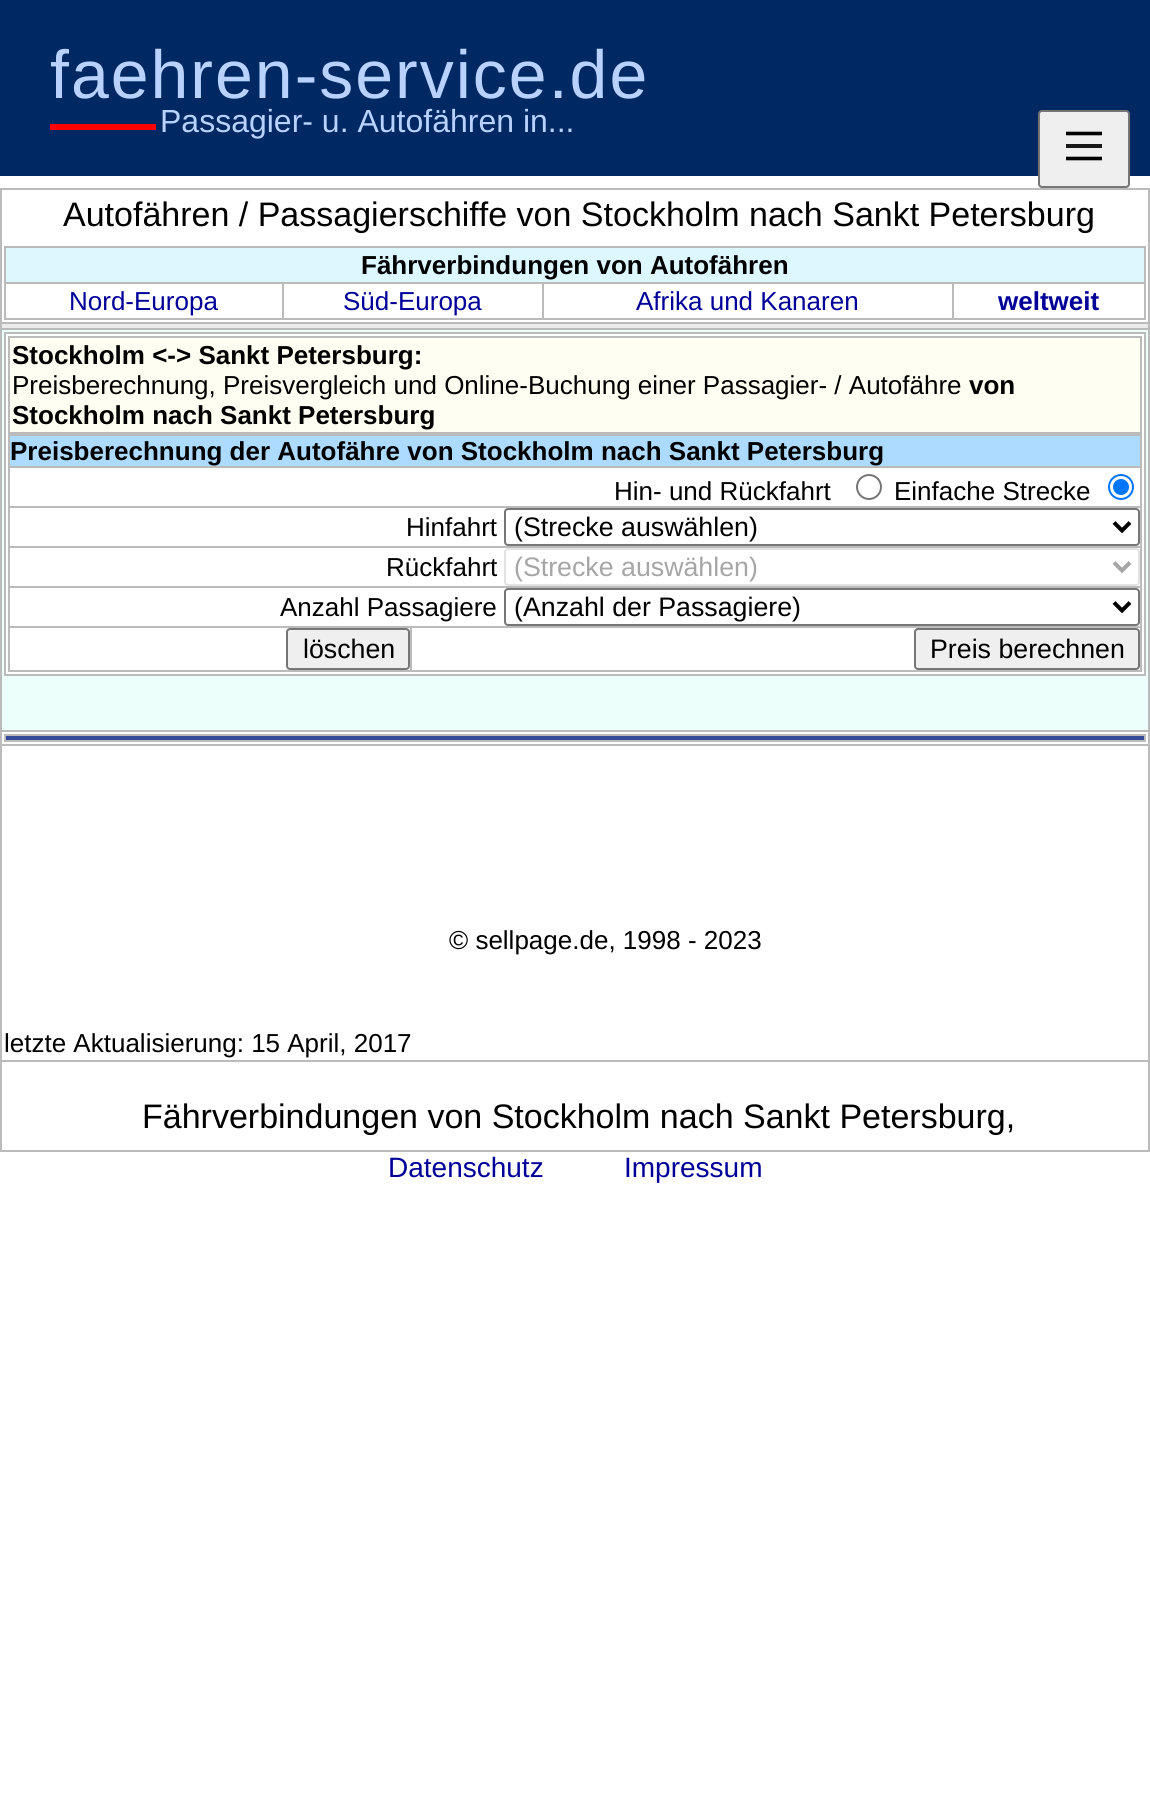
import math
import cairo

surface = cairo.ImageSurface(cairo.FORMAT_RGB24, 1150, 1800)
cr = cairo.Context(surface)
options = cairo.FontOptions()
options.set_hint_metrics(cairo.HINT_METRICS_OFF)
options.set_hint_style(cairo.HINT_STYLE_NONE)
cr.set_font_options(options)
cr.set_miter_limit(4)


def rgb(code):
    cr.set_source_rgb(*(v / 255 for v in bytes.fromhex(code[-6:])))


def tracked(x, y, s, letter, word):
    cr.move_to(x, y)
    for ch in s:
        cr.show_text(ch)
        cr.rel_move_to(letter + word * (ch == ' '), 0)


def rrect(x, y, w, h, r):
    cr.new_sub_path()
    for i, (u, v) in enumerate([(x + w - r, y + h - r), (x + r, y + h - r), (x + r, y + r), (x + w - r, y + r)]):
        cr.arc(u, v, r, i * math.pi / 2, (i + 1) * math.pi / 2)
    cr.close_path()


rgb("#ffffff")
cr.paint()
rgb("#002963")
cr.rectangle(0, 0, 1150, 176)
cr.fill()
rgb("#ff0000")
cr.rectangle(50, 124, 106, 6)
cr.fill()
rgb("#efefef")
rrect(1039, 111, 90, 76, 3)
cr.fill_preserve()
rgb("#767676")
cr.stroke()
cr.new_path()
cr.move_to(1066, 133.5)
cr.line_to(1102, 133.5)
rgb("#000000")
cr.set_line_width(3.6)
cr.stroke()
rgb("#181818")
cr.rectangle(1066, 144, 36, 4)
cr.fill()
cr.new_path()
cr.move_to(1066, 158.5)
cr.line_to(1102, 158.5)
rgb("#000000")
cr.stroke()
for x, y, w, h, color in [
    (0, 188, 1150, 2, "#bbbbbb"),
    (0, 322, 1150, 2, "#bbbbbb"),
    (2, 324, 1148, 4, "#ebebeb"),
    (0, 328, 1150, 2, "#bbbbbb"),
    (0, 730, 1150, 2, "#bbbbbb"),
    (0, 744, 1150, 2, "#bbbbbb"),
    (0, 1060, 1150, 2, "#bbbbbb"),
    (1148, 1060, 2, 92, "#bbbbbb"),
    (1148, 744, 2, 318, "#bbbbbb"),
    (1148, 730, 2, 16, "#bbbbbb"),
    (1148, 328, 2, 404, "#bbbbbb"),
    (1148, 322, 2, 8, "#bbbbbb"),
    (1148, 188, 2, 136, "#bbbbbb"),
    (0, 1150, 1150, 2, "#bbbbbb"),
    (0, 1060, 2, 92, "#bbbbbb"),
    (0, 744, 2, 318, "#bbbbbb"),
    (0, 730, 2, 16, "#bbbbbb"),
    (0, 328, 2, 404, "#bbbbbb"),
    (0, 322, 2, 8, "#bbbbbb"),
    (0, 188, 2, 136, "#bbbbbb"),
    (6, 248, 1138, 34, "#ddf7ff"),
    (4, 246, 1142, 2, "#bbbbbb"),
    (952, 282, 194, 2, "#bbbbbb"),
    (1144, 282, 2, 38, "#bbbbbb"),
    (1144, 246, 2, 38, "#bbbbbb"),
    (952, 318, 194, 2, "#bbbbbb"),
    (952, 282, 2, 38, "#bbbbbb"),
    (542, 282, 412, 2, "#bbbbbb"),
    (542, 318, 412, 2, "#bbbbbb"),
    (542, 282, 2, 38, "#bbbbbb"),
    (282, 282, 262, 2, "#bbbbbb"),
    (282, 318, 262, 2, "#bbbbbb"),
    (282, 282, 2, 38, "#bbbbbb"),
    (4, 282, 280, 2, "#bbbbbb"),
    (4, 318, 280, 2, "#bbbbbb"),
    (4, 282, 2, 38, "#bbbbbb"),
    (4, 246, 2, 38, "#bbbbbb"),
    (2, 330, 1146, 400, "#ecfffb"),
    (6, 334, 1138, 340, "#ffffff"),
    (4, 332, 1142, 2, "#bbbbbb"),
    (1144, 332, 2, 344, "#bbbbbb"),
    (4, 674, 1142, 2, "#bbbbbb"),
    (4, 332, 2, 344, "#bbbbbb"),
    (10, 338, 1130, 94, "#fefff2"),
    (8, 336, 1134, 2, "#bbbbbb"),
    (1140, 336, 2, 98, "#bbbbbb"),
    (8, 432, 1134, 4, "#bbbbbb"),
    (8, 336, 2, 98, "#bbbbbb"),
    (10, 436, 1130, 30, "#addbff"),
    (8, 466, 1134, 2, "#bbbbbb"),
    (8, 506, 1134, 2, "#bbbbbb"),
    (8, 546, 1134, 2, "#bbbbbb"),
    (8, 586, 1134, 2, "#bbbbbb"),
    (410, 626, 732, 2, "#bbbbbb"),
    (1140, 626, 2, 46, "#bbbbbb"),
    (1140, 586, 2, 42, "#bbbbbb"),
    (1140, 546, 2, 42, "#bbbbbb"),
    (1140, 506, 2, 42, "#bbbbbb"),
    (1140, 434, 2, 74, "#bbbbbb"),
    (410, 670, 732, 2, "#bbbbbb"),
    (410, 626, 2, 46, "#bbbbbb"),
    (8, 626, 404, 2, "#bbbbbb"),
    (8, 670, 404, 2, "#bbbbbb"),
    (8, 626, 2, 46, "#bbbbbb"),
    (8, 586, 2, 42, "#bbbbbb"),
    (8, 546, 2, 42, "#bbbbbb"),
    (8, 506, 2, 42, "#bbbbbb"),
    (8, 434, 2, 74, "#bbbbbb"),
]:
    rgb(color)
    cr.rectangle(x, y, w, h)
    cr.fill()
cr.arc(869, 487, 12, 0, 2 * math.pi)
rgb("#767676")
cr.set_line_width(2)
cr.stroke()
cr.arc(1121, 487, 12, 0, 2 * math.pi)
rgb("#0075ff")
cr.stroke()
cr.arc(1121, 487, 8, 0, 2 * math.pi)
cr.fill()
rrect(505, 509, 634, 36, 3)
rgb("#767676")
cr.stroke()
cr.new_path()
cr.move_to(1114, 522.5)
cr.line_to(1122, 530.5)
cr.line_to(1130, 522.5)
rgb("#000000")
cr.set_line_width(4)
cr.stroke()
rrect(505, 549, 634, 36, 3)
rgb("#e2e2e2")
cr.set_line_width(2)
cr.stroke()
cr.new_path()
cr.move_to(1114, 562.5)
cr.line_to(1122, 570.5)
cr.line_to(1130, 562.5)
rgb("#a6a6a6")
cr.set_line_width(4)
cr.stroke()
rrect(505, 589, 634, 36, 3)
rgb("#767676")
cr.set_line_width(2)
cr.stroke()
cr.new_path()
cr.move_to(1114, 602.5)
cr.line_to(1122, 610.5)
cr.line_to(1130, 602.5)
rgb("#000000")
cr.set_line_width(4)
cr.stroke()
rgb("#efefef")
rrect(287, 629, 122, 40, 3)
cr.fill_preserve()
rgb("#767676")
cr.set_line_width(2)
cr.stroke()
rgb("#efefef")
rrect(915, 629, 224, 40, 3)
cr.fill_preserve()
rgb("#767676")
cr.stroke()
for x, y, w, h, color in [
    (6, 736, 1140, 4, "#354a99"),
    (4, 734, 1142, 2, "#bbbbbb"),
    (1144, 734, 2, 8, "#bbbbbb"),
    (4, 740, 1142, 2, "#bbbbbb"),
    (4, 734, 2, 8, "#bbbbbb"),
]:
    rgb(color)
    cr.rectangle(x, y, w, h)
    cr.fill()
cr.select_font_face("Liberation Sans")
cr.set_font_size(68)
rgb("#b9d2fd")
tracked(50, 98, "faehren-service.de", 2, 0)
cr.set_font_size(32)
cr.move_to(160, 132)
cr.show_text("Passagier- u. Autofähren in...")
cr.set_font_size(34)
rgb("#000000")
cr.move_to(63, 226)
cr.show_text("Autofähren / Passagierschiffe von Stockholm nach Sankt Petersburg")
cr.select_font_face("Liberation Sans", cairo.FONT_SLANT_NORMAL, cairo.FONT_WEIGHT_BOLD)
cr.set_font_size(26)
cr.move_to(361, 274)
cr.show_text("Fährverbindungen von Autofähren")
cr.select_font_face("Liberation Sans")
rgb("#000099")
for x, y, s in [
    (69, 310, "Nord-Europa"),
    (343, 310, "Süd-Europa"),
    (636, 310, "Afrika und Kanaren"),
]:
    cr.move_to(x, y)
    cr.show_text(s)
cr.select_font_face("Liberation Sans", cairo.FONT_SLANT_NORMAL, cairo.FONT_WEIGHT_BOLD)
cr.move_to(998, 310)
cr.show_text("weltweit")
rgb("#000000")
cr.move_to(12, 364)
cr.show_text("Stockholm <-> Sankt Petersburg:")
cr.select_font_face("Liberation Sans")
cr.move_to(12, 394)
cr.show_text("Preisberechnung, Preisvergleich und Online-Buchung einer Passagier- / Autofähre")
cr.select_font_face("Liberation Sans", cairo.FONT_SLANT_NORMAL, cairo.FONT_WEIGHT_BOLD)
for x, y, s in [
    (969, 394, "von"),
    (12, 424, "Stockholm nach Sankt Petersburg"),
    (10, 460, "Preisberechnung der Autofähre von Stockholm nach Sankt Petersburg"),
]:
    cr.move_to(x, y)
    cr.show_text(s)
cr.select_font_face("Liberation Sans")
for x, y, s in [
    (614, 500, "Hin- und Rückfahrt"),
    (894, 500, "Einfache Strecke"),
    (406, 536, "Hinfahrt"),
]:
    cr.move_to(x, y)
    cr.show_text(s)
cr.set_font_size(26.75)
cr.move_to(514, 536)
cr.show_text("(Strecke auswählen)")
cr.set_font_size(26)
cr.move_to(386, 576)
cr.show_text("Rückfahrt")
cr.set_font_size(26.75)
rgb("#a6a6a6")
cr.move_to(514, 576)
cr.show_text("(Strecke auswählen)")
cr.set_font_size(26)
rgb("#000000")
cr.move_to(280, 616)
cr.show_text("Anzahl Passagiere")
cr.set_font_size(26.75)
for x, y, s in [
    (514, 616, "(Anzahl der Passagiere)"),
    (303, 658, "löschen"),
    (930, 658, "Preis berechnen"),
]:
    cr.move_to(x, y)
    cr.show_text(s)
cr.set_font_size(26)
cr.move_to(449, 949)
cr.show_text("© sellpage.de, 1998 - 2023")
cr.move_to(4, 1052)
cr.show_text("letzte Aktualisierung: 15 April, 2017")
cr.set_font_size(34)
cr.move_to(142, 1128)
cr.show_text("Fährverbindungen von Stockholm nach Sankt Petersburg,")
cr.set_font_size(28)
rgb("#000099")
cr.move_to(388, 1177)
cr.show_text("Datenschutz")
cr.move_to(624, 1177)
cr.show_text("Impressum")
surface.write_to_png("page.png")
